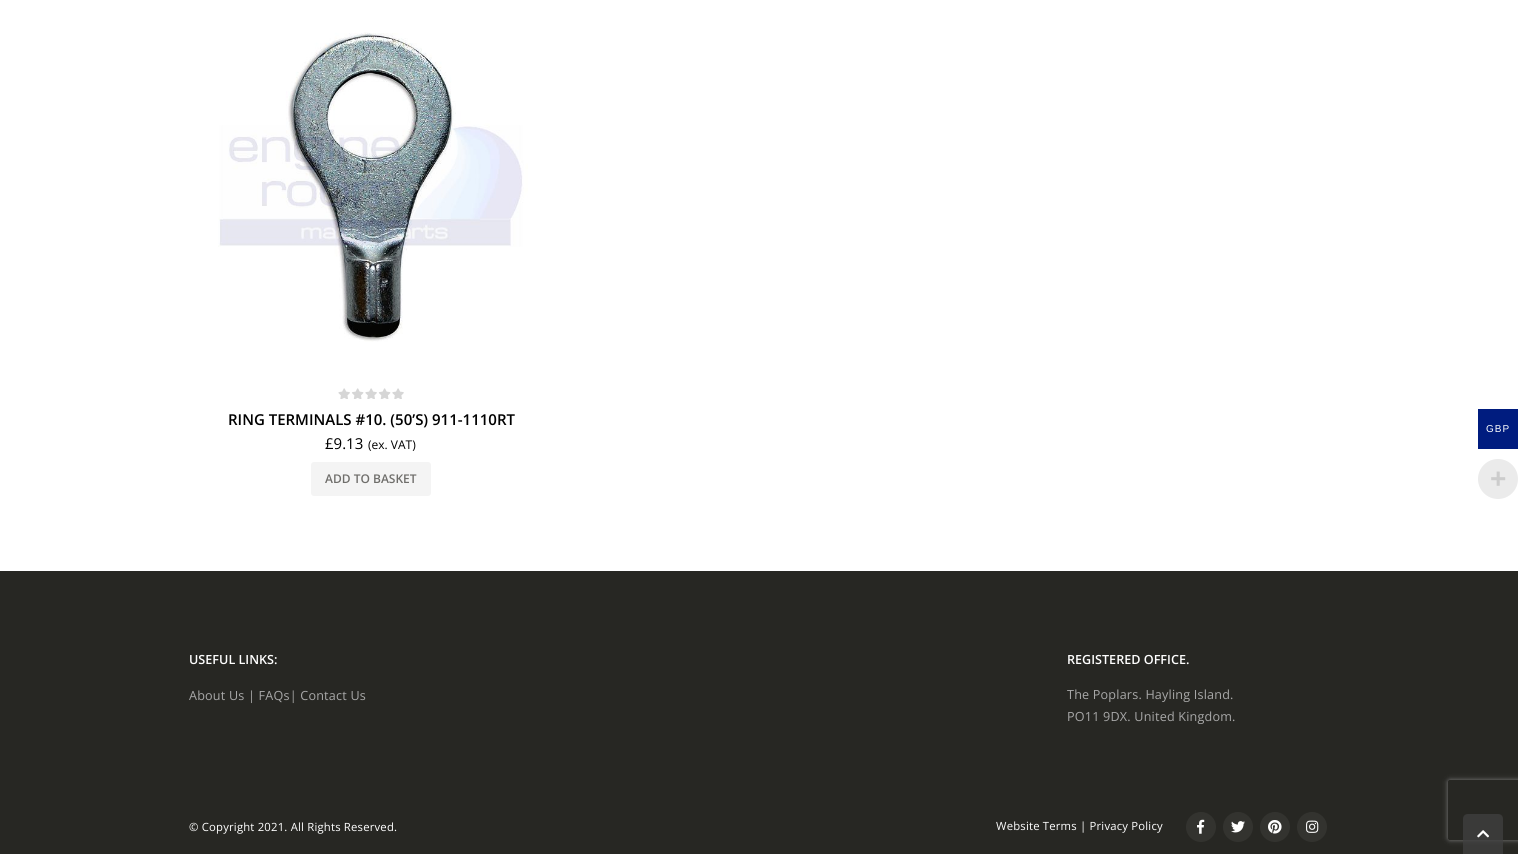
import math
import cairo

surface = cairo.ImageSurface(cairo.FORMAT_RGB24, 1518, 854)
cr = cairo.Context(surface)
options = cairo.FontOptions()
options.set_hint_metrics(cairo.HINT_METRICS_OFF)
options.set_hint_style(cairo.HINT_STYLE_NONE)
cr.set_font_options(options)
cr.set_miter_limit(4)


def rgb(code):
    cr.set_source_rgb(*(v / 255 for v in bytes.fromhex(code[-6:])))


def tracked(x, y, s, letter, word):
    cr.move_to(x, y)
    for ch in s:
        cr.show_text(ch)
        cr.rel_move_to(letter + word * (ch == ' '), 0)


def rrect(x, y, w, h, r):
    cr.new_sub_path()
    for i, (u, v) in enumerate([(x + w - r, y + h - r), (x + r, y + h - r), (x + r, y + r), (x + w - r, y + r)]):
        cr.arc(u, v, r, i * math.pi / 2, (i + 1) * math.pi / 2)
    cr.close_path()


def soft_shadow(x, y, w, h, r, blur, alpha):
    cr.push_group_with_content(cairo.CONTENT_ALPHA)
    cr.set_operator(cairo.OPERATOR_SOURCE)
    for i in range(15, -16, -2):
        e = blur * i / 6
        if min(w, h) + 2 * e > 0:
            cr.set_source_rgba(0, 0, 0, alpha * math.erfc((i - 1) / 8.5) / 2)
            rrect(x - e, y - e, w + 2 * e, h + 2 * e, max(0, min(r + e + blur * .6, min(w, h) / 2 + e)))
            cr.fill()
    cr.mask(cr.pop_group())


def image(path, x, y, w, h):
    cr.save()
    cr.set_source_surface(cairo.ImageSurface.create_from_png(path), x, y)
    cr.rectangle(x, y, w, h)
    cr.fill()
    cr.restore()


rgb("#ffffff")
cr.paint()
image("img/1.png", 218, 32, 310, 310)
image("img/2.png", 338, 388, 66, 11)
rgb("#f4f4f4")
rrect(311, 462, 120, 34, 3)
cr.fill()
rgb("#272723")
cr.rectangle(0, 571, 1518, 283)
cr.fill()
rgb("#33332f")
cr.arc(1201, 827, 15, 0, 2 * math.pi)
cr.fill()
image("img/3.png", 1197, 819, 8, 15)
cr.arc(1238, 827, 15, 0, 2 * math.pi)
cr.fill()
image("img/4.png", 1231, 821, 14, 12)
cr.arc(1275, 827, 15, 0, 2 * math.pi)
cr.fill()
image("img/5.png", 1268, 820, 14, 14)
cr.arc(1312, 827, 15, 0, 2 * math.pi)
cr.fill()
image("img/6.png", 1306, 820, 13, 13)
rgb("#001c7f")
cr.rectangle(1478, 409, 40, 40)
cr.fill()
rgb("#ebebeb")
cr.arc(1498, 479, 20, 0, 2 * math.pi)
cr.fill()
cr.save()
cr.set_fill_rule(cairo.FILL_RULE_EVEN_ODD)
cr.new_path()
cr.move_to(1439, 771)
cr.line_to(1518, 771)
cr.line_to(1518, 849)
cr.line_to(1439, 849)
cr.close_path()
cr.move_to(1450, 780)
cr.line_to(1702, 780)
cr.curve_to(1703, 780, 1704, 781, 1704, 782)
cr.line_to(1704, 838)
cr.curve_to(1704, 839, 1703, 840, 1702, 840)
cr.line_to(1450, 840)
cr.curve_to(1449, 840, 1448, 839, 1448, 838)
cr.line_to(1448, 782)
cr.curve_to(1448, 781, 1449, 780, 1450, 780)
cr.close_path()
cr.clip()
rgb("#808080")
soft_shadow(1448, 780, 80, 60, 2, 2.5, 1)
cr.restore()
cr.set_source_rgba(0.251, 0.251, 0.251, 0.75)
cr.new_path()
cr.move_to(1468, 814)
cr.line_to(1498, 814)
cr.curve_to(1501, 814, 1503, 816, 1503, 819)
cr.line_to(1503, 854)
cr.line_to(1463, 854)
cr.line_to(1463, 819)
cr.curve_to(1463, 816, 1465, 814, 1468, 814)
cr.close_path()
cr.fill()
image("img/7.png", 1477, 830, 12, 8)
cr.select_font_face("Open Sans SemiBold")
cr.set_font_size(15)
rgb("#000000")
cr.move_to(228, 425)
cr.show_text("RING TERMINALS #10. (50’S) 911-1110RT")
cr.select_font_face("Open Sans")
cr.move_to(325, 449)
cr.show_text("£9.13")
cr.set_font_size(12)
cr.move_to(368, 449)
cr.show_text("(ex. VAT)")
cr.select_font_face("Open Sans SemiBold")
rgb("#6f6e6b")
cr.move_to(325, 483)
cr.show_text("ADD TO BASKET")
cr.set_font_size(12.6)
rgb("#ffffff")
cr.move_to(189, 664)
cr.show_text("USEFUL LINKS:")
cr.select_font_face("Open Sans")
rgb("#a8a8a8")
tracked(189, 700, "About Us | FAQs| Contact Us", 0.2, 0)
cr.select_font_face("Open Sans SemiBold")
rgb("#ffffff")
cr.move_to(1067, 664)
cr.show_text("REGISTERED OFFICE.")
cr.select_font_face("Open Sans")
rgb("#a8a8a8")
tracked(1067, 699, "The Poplars. Hayling Island.", 0.2, 0)
tracked(1067, 721, "PO11 9DX. United Kingdom.", 0.2, 0)
cr.set_font_size(11.3)
rgb("#ffffff")
tracked(189, 831, "© Copyright 2021. All Rights Reserved.", 0.2, 0)
tracked(996, 830, "Website Terms | Privacy Policy", 0.2, 0)
cr.select_font_face("Liberation Sans")
cr.set_font_size(10)
tracked(1486, 432, "GBP", 1, 0)
cr.select_font_face("Liberation Sans", cairo.FONT_SLANT_NORMAL, cairo.FONT_WEIGHT_BOLD)
cr.set_font_size(28)
rgb("#cccccc")
tracked(1490, 488, "+", 0.2, 0)
surface.write_to_png("page.png")
